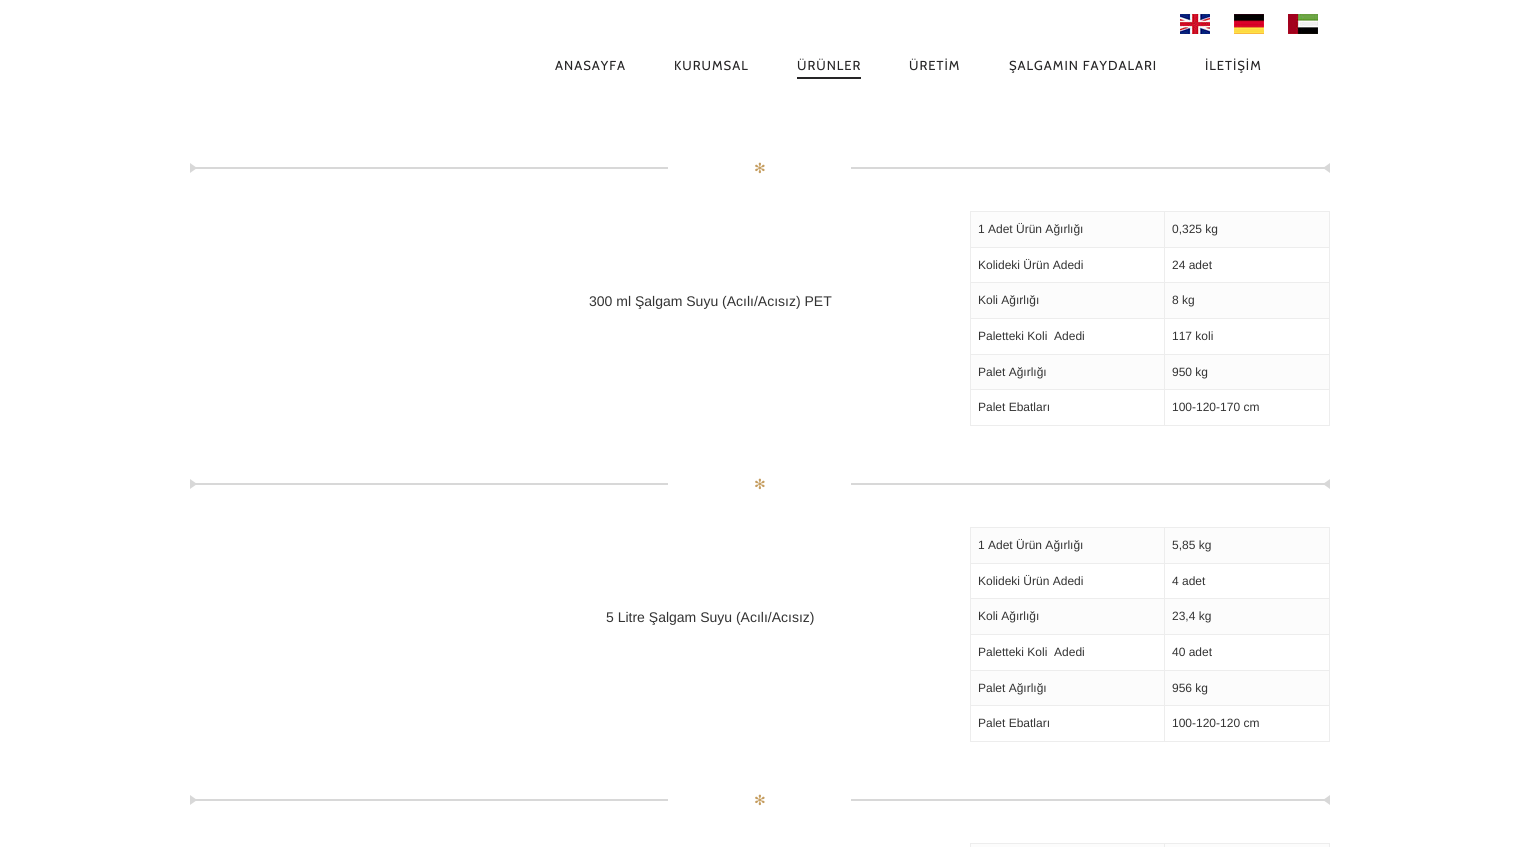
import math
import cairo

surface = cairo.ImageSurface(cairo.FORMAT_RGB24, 1519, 847)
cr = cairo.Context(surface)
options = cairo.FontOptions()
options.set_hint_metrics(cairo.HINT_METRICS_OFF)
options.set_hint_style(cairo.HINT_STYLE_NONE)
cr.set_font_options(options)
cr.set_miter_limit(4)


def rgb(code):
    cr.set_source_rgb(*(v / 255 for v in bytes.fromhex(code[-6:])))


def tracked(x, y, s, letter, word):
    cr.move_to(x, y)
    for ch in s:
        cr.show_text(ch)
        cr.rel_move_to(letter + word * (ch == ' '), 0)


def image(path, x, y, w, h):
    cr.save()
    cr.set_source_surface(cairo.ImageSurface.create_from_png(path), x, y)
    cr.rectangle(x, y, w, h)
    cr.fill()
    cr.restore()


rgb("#ffffff")
cr.paint()
image("img/1.png", 1180, 14, 30, 20)
image("img/2.png", 1234, 14, 30, 20)
image("img/3.png", 1288, 14, 30, 20)
rgb("#262526")
cr.rectangle(797, 77, 64, 2)
cr.fill()
rgb("#d8d8d8")
cr.rectangle(190, 167, 478, 2)
cr.fill()
cr.new_path()
cr.move_to(190, 173)
cr.line_to(190, 163)
cr.line_to(197, 168)
cr.close_path()
cr.fill()
cr.rectangle(851, 167, 478, 2)
cr.fill()
cr.new_path()
cr.move_to(1330, 163)
cr.line_to(1330, 173)
cr.line_to(1323, 168)
cr.close_path()
cr.fill()
for x, y, w, h, color in [
    (971, 212, 358, 35, "#fcfcfc"),
    (1164, 211, 166, 1, "#ededed"),
    (1164, 247, 166, 1, "#ededed"),
    (1164, 282, 166, 1, "#ededed"),
    (971, 283, 358, 35, "#fcfcfc"),
    (1164, 318, 166, 1, "#ededed"),
    (1164, 354, 166, 1, "#ededed"),
    (971, 355, 358, 34, "#fcfcfc"),
    (1164, 389, 166, 1, "#ededed"),
    (1329, 389, 1, 37, "#ededed"),
    (1164, 425, 166, 1, "#ededed"),
    (1164, 389, 1, 37, "#ededed"),
    (970, 389, 195, 1, "#ededed"),
    (1164, 354, 1, 36, "#ededed"),
    (970, 354, 195, 1, "#ededed"),
    (1164, 318, 1, 37, "#ededed"),
    (970, 318, 195, 1, "#ededed"),
    (1164, 282, 1, 37, "#ededed"),
    (970, 282, 195, 1, "#ededed"),
    (1164, 247, 1, 36, "#ededed"),
    (970, 247, 195, 1, "#ededed"),
    (1164, 211, 1, 37, "#ededed"),
    (970, 211, 195, 1, "#ededed"),
    (970, 425, 195, 1, "#ededed"),
    (970, 389, 1, 37, "#ededed"),
    (970, 354, 1, 36, "#ededed"),
    (970, 318, 1, 37, "#ededed"),
    (970, 282, 1, 37, "#ededed"),
    (970, 247, 1, 36, "#ededed"),
    (970, 211, 1, 37, "#ededed"),
    (1329, 354, 1, 36, "#ededed"),
    (1329, 318, 1, 37, "#ededed"),
    (1329, 282, 1, 37, "#ededed"),
    (1329, 247, 1, 36, "#ededed"),
    (1329, 211, 1, 37, "#ededed"),
    (190, 483, 478, 2, "#d8d8d8"),
]:
    rgb(color)
    cr.rectangle(x, y, w, h)
    cr.fill()
cr.new_path()
cr.move_to(190, 489)
cr.line_to(190, 479)
cr.line_to(197, 484)
cr.close_path()
cr.fill()
cr.rectangle(851, 483, 478, 2)
cr.fill()
cr.new_path()
cr.move_to(1330, 479)
cr.line_to(1330, 489)
cr.line_to(1323, 484)
cr.close_path()
cr.fill()
for x, y, w, h, color in [
    (971, 528, 358, 35, "#fcfcfc"),
    (1164, 527, 166, 1, "#ededed"),
    (1164, 563, 166, 1, "#ededed"),
    (1164, 598, 166, 1, "#ededed"),
    (971, 599, 358, 35, "#fcfcfc"),
    (1164, 634, 166, 1, "#ededed"),
    (1164, 670, 166, 1, "#ededed"),
    (971, 671, 358, 34, "#fcfcfc"),
    (1164, 705, 166, 1, "#ededed"),
    (1329, 705, 1, 37, "#ededed"),
    (1164, 741, 166, 1, "#ededed"),
    (1164, 705, 1, 37, "#ededed"),
    (970, 705, 195, 1, "#ededed"),
    (1164, 670, 1, 36, "#ededed"),
    (970, 670, 195, 1, "#ededed"),
    (1164, 634, 1, 37, "#ededed"),
    (970, 634, 195, 1, "#ededed"),
    (1164, 598, 1, 37, "#ededed"),
    (970, 598, 195, 1, "#ededed"),
    (1164, 563, 1, 36, "#ededed"),
    (970, 563, 195, 1, "#ededed"),
    (1164, 527, 1, 37, "#ededed"),
    (970, 527, 195, 1, "#ededed"),
    (970, 741, 195, 1, "#ededed"),
    (970, 705, 1, 37, "#ededed"),
    (970, 670, 1, 36, "#ededed"),
    (970, 634, 1, 37, "#ededed"),
    (970, 598, 1, 37, "#ededed"),
    (970, 563, 1, 36, "#ededed"),
    (970, 527, 1, 37, "#ededed"),
    (1329, 670, 1, 36, "#ededed"),
    (1329, 634, 1, 37, "#ededed"),
    (1329, 598, 1, 37, "#ededed"),
    (1329, 563, 1, 36, "#ededed"),
    (1329, 527, 1, 37, "#ededed"),
    (190, 799, 478, 2, "#d8d8d8"),
]:
    rgb(color)
    cr.rectangle(x, y, w, h)
    cr.fill()
cr.new_path()
cr.move_to(190, 805)
cr.line_to(190, 795)
cr.line_to(197, 800)
cr.close_path()
cr.fill()
cr.rectangle(851, 799, 478, 2)
cr.fill()
cr.new_path()
cr.move_to(1330, 795)
cr.line_to(1330, 805)
cr.line_to(1323, 800)
cr.close_path()
cr.fill()
for x, y, w, h, color in [
    (970, 844, 359, 3, "#fcfcfc"),
    (1164, 843, 166, 1, "#ededed"),
    (1164, 843, 1, 4, "#ededed"),
    (970, 843, 195, 1, "#ededed"),
    (970, 843, 1, 4, "#ededed"),
    (1329, 843, 1, 4, "#ededed"),
]:
    rgb(color)
    cr.rectangle(x, y, w, h)
    cr.fill()
cr.select_font_face("Cabin")
cr.set_font_size(13)
rgb("#262526")
for x, y, s in [
    (555, 70, "ANASAYFA"),
    (674, 70, "KURUMSAL"),
    (797, 70, "ÜRÜNLER"),
    (909, 70, "ÜRETİM"),
    (1009, 70, "ŞALGAMIN FAYDALARI"),
    (1205, 70, "İLETİŞİM"),
]:
    tracked(x, y, s, 1, 0)
cr.select_font_face("DejaVu Sans")
cr.set_font_size(14)
rgb("#c59d5f")
cr.move_to(754, 173)
cr.show_text("✻")
cr.select_font_face("Liberation Sans")
rgb("#333333")
cr.move_to(589, 306)
cr.show_text("300 ml Şalgam Suyu (Acılı/Acısız) PET")
cr.set_font_size(12)
for x, y, s in [
    (978, 233, "1 Adet Ürün Ağırlığı"),
    (1172, 233, "0,325 kg"),
    (978, 269, "Kolideki Ürün Adedi"),
    (1172, 269, "24 adet"),
    (978, 304, "Koli Ağırlığı"),
    (1172, 304, "8 kg"),
    (978, 340, "Paletteki Koli  Adedi"),
    (1172, 340, "117 koli"),
    (978, 376, "Palet Ağırlığı"),
    (1172, 376, "950 kg"),
    (978, 411, "Palet Ebatları"),
    (1172, 411, "100-120-170 cm"),
]:
    cr.move_to(x, y)
    cr.show_text(s)
cr.select_font_face("DejaVu Sans")
cr.set_font_size(14)
rgb("#c59d5f")
cr.move_to(754, 489)
cr.show_text("✻")
cr.select_font_face("Liberation Sans")
rgb("#333333")
cr.move_to(606, 622)
cr.show_text("5 Litre Şalgam Suyu (Acılı/Acısız)")
cr.set_font_size(12)
for x, y, s in [
    (978, 549, "1 Adet Ürün Ağırlığı"),
    (1172, 549, "5,85 kg"),
    (978, 585, "Kolideki Ürün Adedi"),
    (1172, 585, "4 adet"),
    (978, 620, "Koli Ağırlığı"),
    (1172, 620, "23,4 kg"),
    (978, 656, "Paletteki Koli  Adedi"),
    (1172, 656, "40 adet"),
    (978, 692, "Palet Ağırlığı"),
    (1172, 692, "956 kg"),
    (978, 727, "Palet Ebatları"),
    (1172, 727, "100-120-120 cm"),
]:
    cr.move_to(x, y)
    cr.show_text(s)
cr.select_font_face("DejaVu Sans")
cr.set_font_size(14)
rgb("#c59d5f")
cr.move_to(754, 805)
cr.show_text("✻")
surface.write_to_png("page.png")
